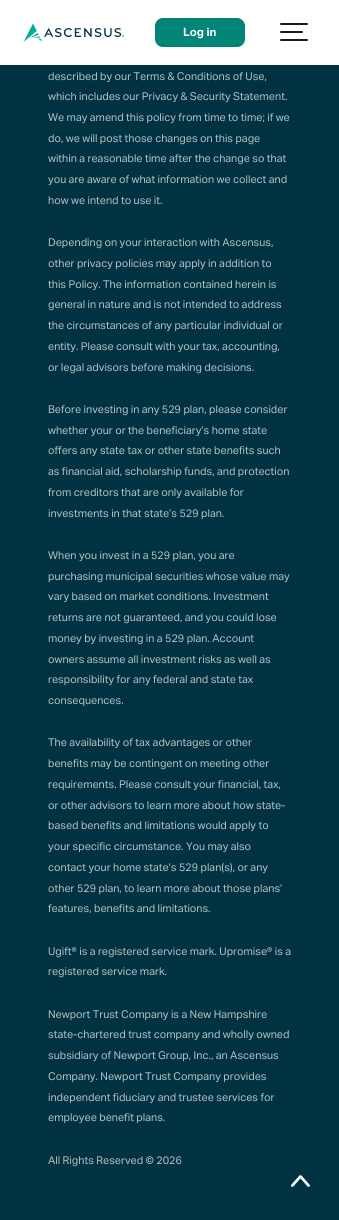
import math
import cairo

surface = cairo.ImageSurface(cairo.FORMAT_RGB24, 339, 1220)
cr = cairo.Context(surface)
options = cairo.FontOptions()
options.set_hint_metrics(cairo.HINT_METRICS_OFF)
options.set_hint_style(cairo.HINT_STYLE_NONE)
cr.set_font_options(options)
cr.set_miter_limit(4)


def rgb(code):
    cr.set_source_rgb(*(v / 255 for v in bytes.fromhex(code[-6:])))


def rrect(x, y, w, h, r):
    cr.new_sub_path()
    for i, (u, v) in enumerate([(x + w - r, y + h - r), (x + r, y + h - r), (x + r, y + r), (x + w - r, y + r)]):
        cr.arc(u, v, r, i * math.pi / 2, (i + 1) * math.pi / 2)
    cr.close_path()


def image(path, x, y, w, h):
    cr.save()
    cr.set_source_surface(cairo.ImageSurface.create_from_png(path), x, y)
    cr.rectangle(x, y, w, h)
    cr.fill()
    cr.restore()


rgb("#003241")
cr.paint()
rgb("#ffffff")
cr.rectangle(0, 0, 339, 65)
cr.fill()
image("img/1.png", 24, 23, 100, 19)
rgb("#008577")
rrect(155.5, 18.5, 89, 28, 7.5)
cr.fill_preserve()
cr.set_line_width(1)
cr.stroke()
rgb("#1a1a1a")
rrect(280, 31, 23, 2, 1)
cr.fill()
rrect(280, 23, 28, 2, 1)
cr.fill()
rrect(280, 39, 28, 2, 1)
cr.fill()
image("img/2.png", 291, 1175, 19, 12)
cr.select_font_face("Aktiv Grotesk", cairo.FONT_SLANT_NORMAL, cairo.FONT_WEIGHT_BOLD)
cr.set_font_size(11.5)
rgb("#ffffff")
cr.move_to(183, 36)
cr.show_text("Log in")
cr.select_font_face("Aktiv Grotesk")
cr.set_font_size(10.8)
rgb("#b3c2c6")
for x, y, s in [
    (48, 80, "described by our Terms & Conditions of Use,"),
    (48, 100, "which includes our Privacy & Security Statement."),
    (48, 121, "We may amend this policy from time to time; if we"),
    (48, 142, "do, we will post those changes on this page"),
    (48, 162, "within a reasonable time after the change so that"),
    (48, 183, "you are aware of what information we collect and"),
    (48, 204, "how we intend to use it."),
    (48, 246, "Depending on your interaction with Ascensus,"),
    (48, 267, "other privacy policies may apply in addition to"),
    (48, 288, "this Policy. The information contained herein is"),
    (48, 308, "general in nature and is not intended to address"),
    (48, 329, "the circumstances of any particular individual or"),
    (48, 350, "entity. Please consult with your tax, accounting,"),
    (48, 371, "or legal advisors before making decisions."),
    (48, 413, "Before investing in any 529 plan, please consider"),
    (48, 434, "whether your or the beneficiary’s home state"),
    (48, 454, "offers any state tax or other state benefits such"),
    (48, 475, "as financial aid, scholarship funds, and protection"),
    (48, 496, "from creditors that are only available for"),
    (48, 517, "investments in that state’s 529 plan."),
    (48, 559, "When you invest in a 529 plan, you are"),
    (48, 580, "purchasing municipal securities whose value may"),
    (48, 600, "vary based on market conditions. Investment"),
    (48, 621, "returns are not guaranteed, and you could lose"),
    (48, 642, "money by investing in a 529 plan. Account"),
    (48, 663, "owners assume all investment risks as well as"),
    (48, 683, "responsibility for any federal and state tax"),
    (48, 704, "consequences."),
    (48, 746, "The availability of tax advantages or other"),
    (48, 767, "benefits may be contingent on meeting other"),
    (48, 788, "requirements. Please consult your financial, tax,"),
    (48, 809, "or other advisors to learn more about how state-"),
    (48, 829, "based benefits and limitations would apply to"),
    (48, 850, "your specific circumstance. You may also"),
    (48, 871, "contact your home state’s 529 plan(s), or any"),
    (48, 892, "other 529 plan, to learn more about those plans’"),
    (48, 912, "features, benefits and limitations."),
    (48, 955, "Ugift® is a registered service mark. Upromise® is a"),
    (48, 975, "registered service mark."),
    (48, 1018, "Newport Trust Company is a New Hampshire"),
    (48, 1038, "state-chartered trust company and wholly owned"),
    (48, 1059, "subsidiary of Newport Group, Inc., an Ascensus"),
    (48, 1080, "Company. Newport Trust Company provides"),
    (48, 1101, "independent fiduciary and trustee services for"),
    (48, 1121, "employee benefit plans."),
    (48, 1164, "All Rights Reserved © 2026"),
]:
    cr.move_to(x, y)
    cr.show_text(s)
surface.write_to_png("page.png")
